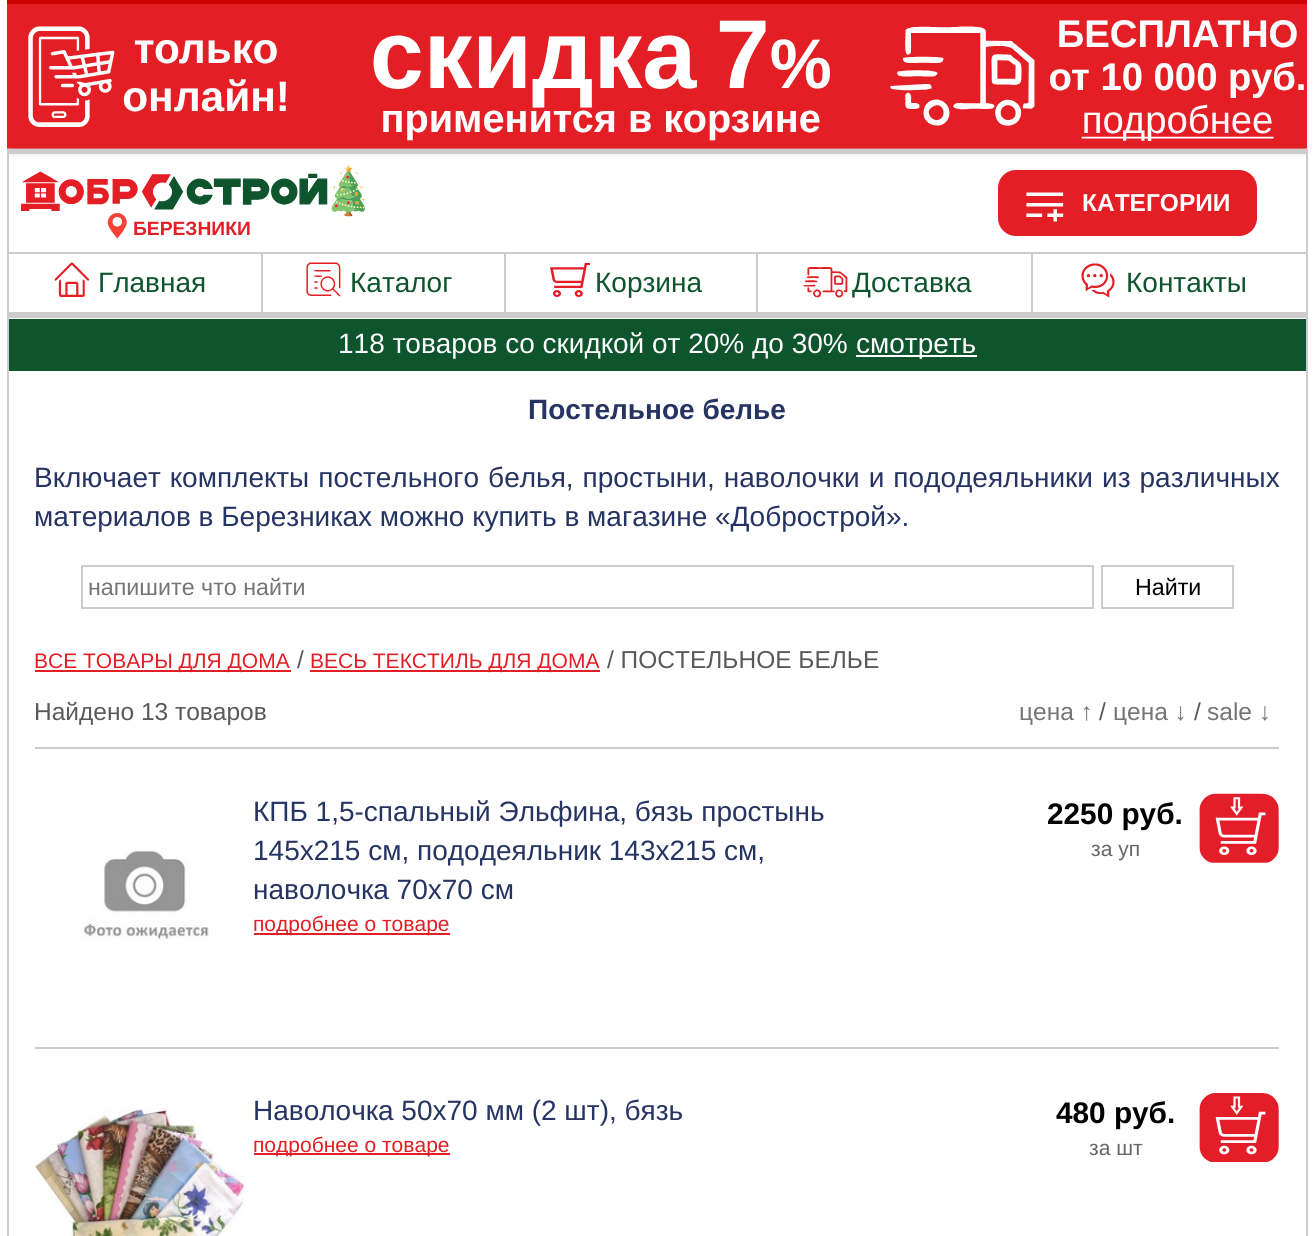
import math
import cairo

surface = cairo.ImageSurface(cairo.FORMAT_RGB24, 1313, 1236)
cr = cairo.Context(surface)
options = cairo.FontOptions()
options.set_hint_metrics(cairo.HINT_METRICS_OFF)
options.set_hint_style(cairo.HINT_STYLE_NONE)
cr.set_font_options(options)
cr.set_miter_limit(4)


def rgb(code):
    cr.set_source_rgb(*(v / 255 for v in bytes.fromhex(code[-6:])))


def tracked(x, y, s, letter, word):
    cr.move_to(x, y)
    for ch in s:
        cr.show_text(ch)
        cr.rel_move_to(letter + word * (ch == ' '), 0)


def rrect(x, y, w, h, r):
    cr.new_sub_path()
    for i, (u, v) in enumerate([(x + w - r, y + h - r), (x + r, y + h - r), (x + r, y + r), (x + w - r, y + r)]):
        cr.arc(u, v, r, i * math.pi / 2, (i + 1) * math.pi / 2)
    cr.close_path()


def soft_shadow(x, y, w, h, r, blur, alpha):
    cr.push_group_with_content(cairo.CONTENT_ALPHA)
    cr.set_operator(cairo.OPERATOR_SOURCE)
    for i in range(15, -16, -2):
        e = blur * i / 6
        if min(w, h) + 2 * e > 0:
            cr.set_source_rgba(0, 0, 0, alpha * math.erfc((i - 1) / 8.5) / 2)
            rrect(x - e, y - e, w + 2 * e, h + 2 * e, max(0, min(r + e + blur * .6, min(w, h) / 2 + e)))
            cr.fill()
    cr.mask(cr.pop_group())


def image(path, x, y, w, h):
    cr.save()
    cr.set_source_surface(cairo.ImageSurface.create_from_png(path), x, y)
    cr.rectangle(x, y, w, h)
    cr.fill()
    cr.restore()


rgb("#ffffff")
cr.paint()
rgb("#000000")
soft_shadow(11, 9, 1293, 142, 0, 3.5, 0.3)
rgb("#cc0000")
cr.rectangle(7, 0, 1300, 4)
cr.fill()
image("img/1.png", 7, 4, 1300, 145)
for x, y, w, h, color in [
    (7, 149, 1300, 5, "#cccccc"),
    (1306, 149, 2, 1087, "#cccccc"),
    (7, 313, 1300, 5, "#cccccc"),
    (7, 149, 2, 1087, "#cccccc"),
]:
    rgb(color)
    cr.rectangle(x, y, w, h)
    cr.fill()
rgb("#e31e24")
rrect(998, 170, 259, 66, 18)
cr.fill()
image("img/2.png", 1026, 192, 38, 30)
image("img/3.png", 21, 165, 344, 52)
image("img/4.png", 107, 213, 20, 26)
for x, y, w, h, color in [
    (9, 252, 1297, 2, "#cccccc"),
    (9, 312, 1297, 1, "#cccccc"),
    (261, 254, 2, 58, "#cccccc"),
]:
    rgb(color)
    cr.rectangle(x, y, w, h)
    cr.fill()
image("img/5.png", 54, 262, 36, 35)
cr.rectangle(504, 254, 2, 58)
cr.fill()
image("img/6.png", 306, 262, 35, 35)
cr.rectangle(756, 254, 2, 58)
cr.fill()
image("img/7.png", 550, 263, 40, 34)
cr.rectangle(1031, 254, 2, 58)
cr.fill()
image("img/8.png", 803, 267, 45, 31)
image("img/9.png", 1081, 263, 34, 35)
rgb("#0e542d")
cr.rectangle(9, 319, 1297, 52)
cr.fill()
rgb("#ffffff")
cr.rectangle(856, 355, 121, 2)
cr.fill()
cr.rectangle(82, 566, 1011, 42)
rgb("#cccccc")
cr.stroke()
cr.rectangle(1102, 566, 131, 42)
cr.stroke()
for x, y, w, h, color in [
    (35, 670, 256, 2, "#e31e24"),
    (310, 670, 290, 2, "#e31e24"),
    (35, 747, 1244, 2, "#cccccc"),
    (35, 1047, 1244, 2, "#cccccc"),
    (254, 933, 196, 2, "#e31e24"),
]:
    rgb(color)
    cr.rectangle(x, y, w, h)
    cr.fill()
image("img/10.png", 1199, 793, 80, 70)
image("img/11.png", 82, 850, 127, 91)
image("img/12.png", 35, 1108, 210, 128)
cr.rectangle(254, 1153, 196, 2)
cr.fill()
image("img/13.png", 1199, 1093, 80, 69)
cr.select_font_face("Liberation Sans", cairo.FONT_SLANT_NORMAL, cairo.FONT_WEIGHT_BOLD)
cr.set_font_size(24.5)
rgb("#ffffff")
cr.move_to(1082, 211)
cr.show_text("КАТЕГОРИИ")
cr.set_font_size(19.25)
rgb("#e31e24")
cr.move_to(133, 235)
cr.show_text("БЕРЕЗНИКИ")
cr.select_font_face("Liberation Sans")
cr.set_font_size(28)
rgb("#0e542d")
for x, y, s in [
    (98, 292, "Главная"),
    (350, 292, "Каталог"),
    (595, 292, "Корзина"),
    (852, 292, "Доставка"),
    (1126, 292, "Контакты"),
]:
    cr.move_to(x, y)
    cr.show_text(s)
rgb("#ffffff")
cr.move_to(338, 353)
cr.show_text("118 товаров со скидкой от 20% до 30%")
cr.move_to(856, 353)
cr.show_text("смотреть")
cr.select_font_face("Liberation Sans", cairo.FONT_SLANT_NORMAL, cairo.FONT_WEIGHT_BOLD)
rgb("#263463")
cr.move_to(528, 419)
cr.show_text("Постельное белье")
cr.select_font_face("Liberation Sans")
tracked(34, 487, "Включает комплекты постельного белья, простыни, наволочки и пододеяльники из различных", 0, 1.25)
cr.move_to(34, 526)
cr.show_text("материалов в Березниках можно купить в магазине «Добрострой».")
cr.set_font_size(23.25)
rgb("#757575")
cr.move_to(88, 595)
cr.show_text("напишите что найти")
rgb("#000000")
cr.move_to(1135, 595)
cr.show_text("Найти")
cr.set_font_size(21)
rgb("#e31e24")
cr.move_to(34, 668)
cr.show_text("ВСЕ ТОВАРЫ ДЛЯ ДОМА")
cr.set_font_size(24.5)
rgb("#595959")
cr.move_to(297, 668)
cr.show_text("/")
cr.set_font_size(21)
rgb("#e31e24")
cr.move_to(310, 668)
cr.show_text("ВЕСЬ ТЕКСТИЛЬ ДЛЯ ДОМА")
cr.set_font_size(24.5)
rgb("#595959")
cr.move_to(607, 668)
cr.show_text("/ ПОСТЕЛЬНОЕ БЕЛЬЕ")
cr.move_to(34, 720)
cr.show_text("Найдено 13 товаров")
rgb("#757575")
cr.move_to(1019, 720)
cr.show_text("цена ↑")
rgb("#595959")
cr.move_to(1099, 720)
cr.show_text("/")
rgb("#757575")
cr.move_to(1113, 720)
cr.show_text("цена ↓")
rgb("#595959")
cr.move_to(1194, 720)
cr.show_text("/")
rgb("#757575")
cr.move_to(1207, 720)
cr.show_text("sale ↓")
cr.set_font_size(28)
rgb("#263463")
for x, y, s in [
    (253, 821, "КПБ 1,5-спальный Эльфина, бязь простынь"),
    (253, 860, "145х215 см, пододеяльник 143х215 см,"),
    (253, 899, "наволочка 70х70 см"),
]:
    cr.move_to(x, y)
    cr.show_text(s)
cr.set_font_size(21)
rgb("#e31e24")
cr.move_to(253, 931)
cr.show_text("подробнее о товаре")
cr.select_font_face("Liberation Sans", cairo.FONT_SLANT_NORMAL, cairo.FONT_WEIGHT_BOLD)
cr.set_font_size(29.75)
rgb("#000000")
cr.move_to(1047, 824)
cr.show_text("2250 руб.")
cr.select_font_face("Liberation Sans")
cr.set_font_size(21)
rgb("#666666")
cr.move_to(1091, 856)
cr.show_text("за уп")
cr.set_font_size(28)
rgb("#263463")
cr.move_to(253, 1120)
cr.show_text("Наволочка 50х70 мм (2 шт), бязь")
cr.set_font_size(21)
rgb("#e31e24")
cr.move_to(253, 1152)
cr.show_text("подробнее о товаре")
cr.select_font_face("Liberation Sans", cairo.FONT_SLANT_NORMAL, cairo.FONT_WEIGHT_BOLD)
cr.set_font_size(29.75)
rgb("#000000")
cr.move_to(1056, 1123)
cr.show_text("480 руб.")
cr.select_font_face("Liberation Sans")
cr.set_font_size(21)
rgb("#666666")
cr.move_to(1089, 1155)
cr.show_text("за шт")
surface.write_to_png("page.png")
